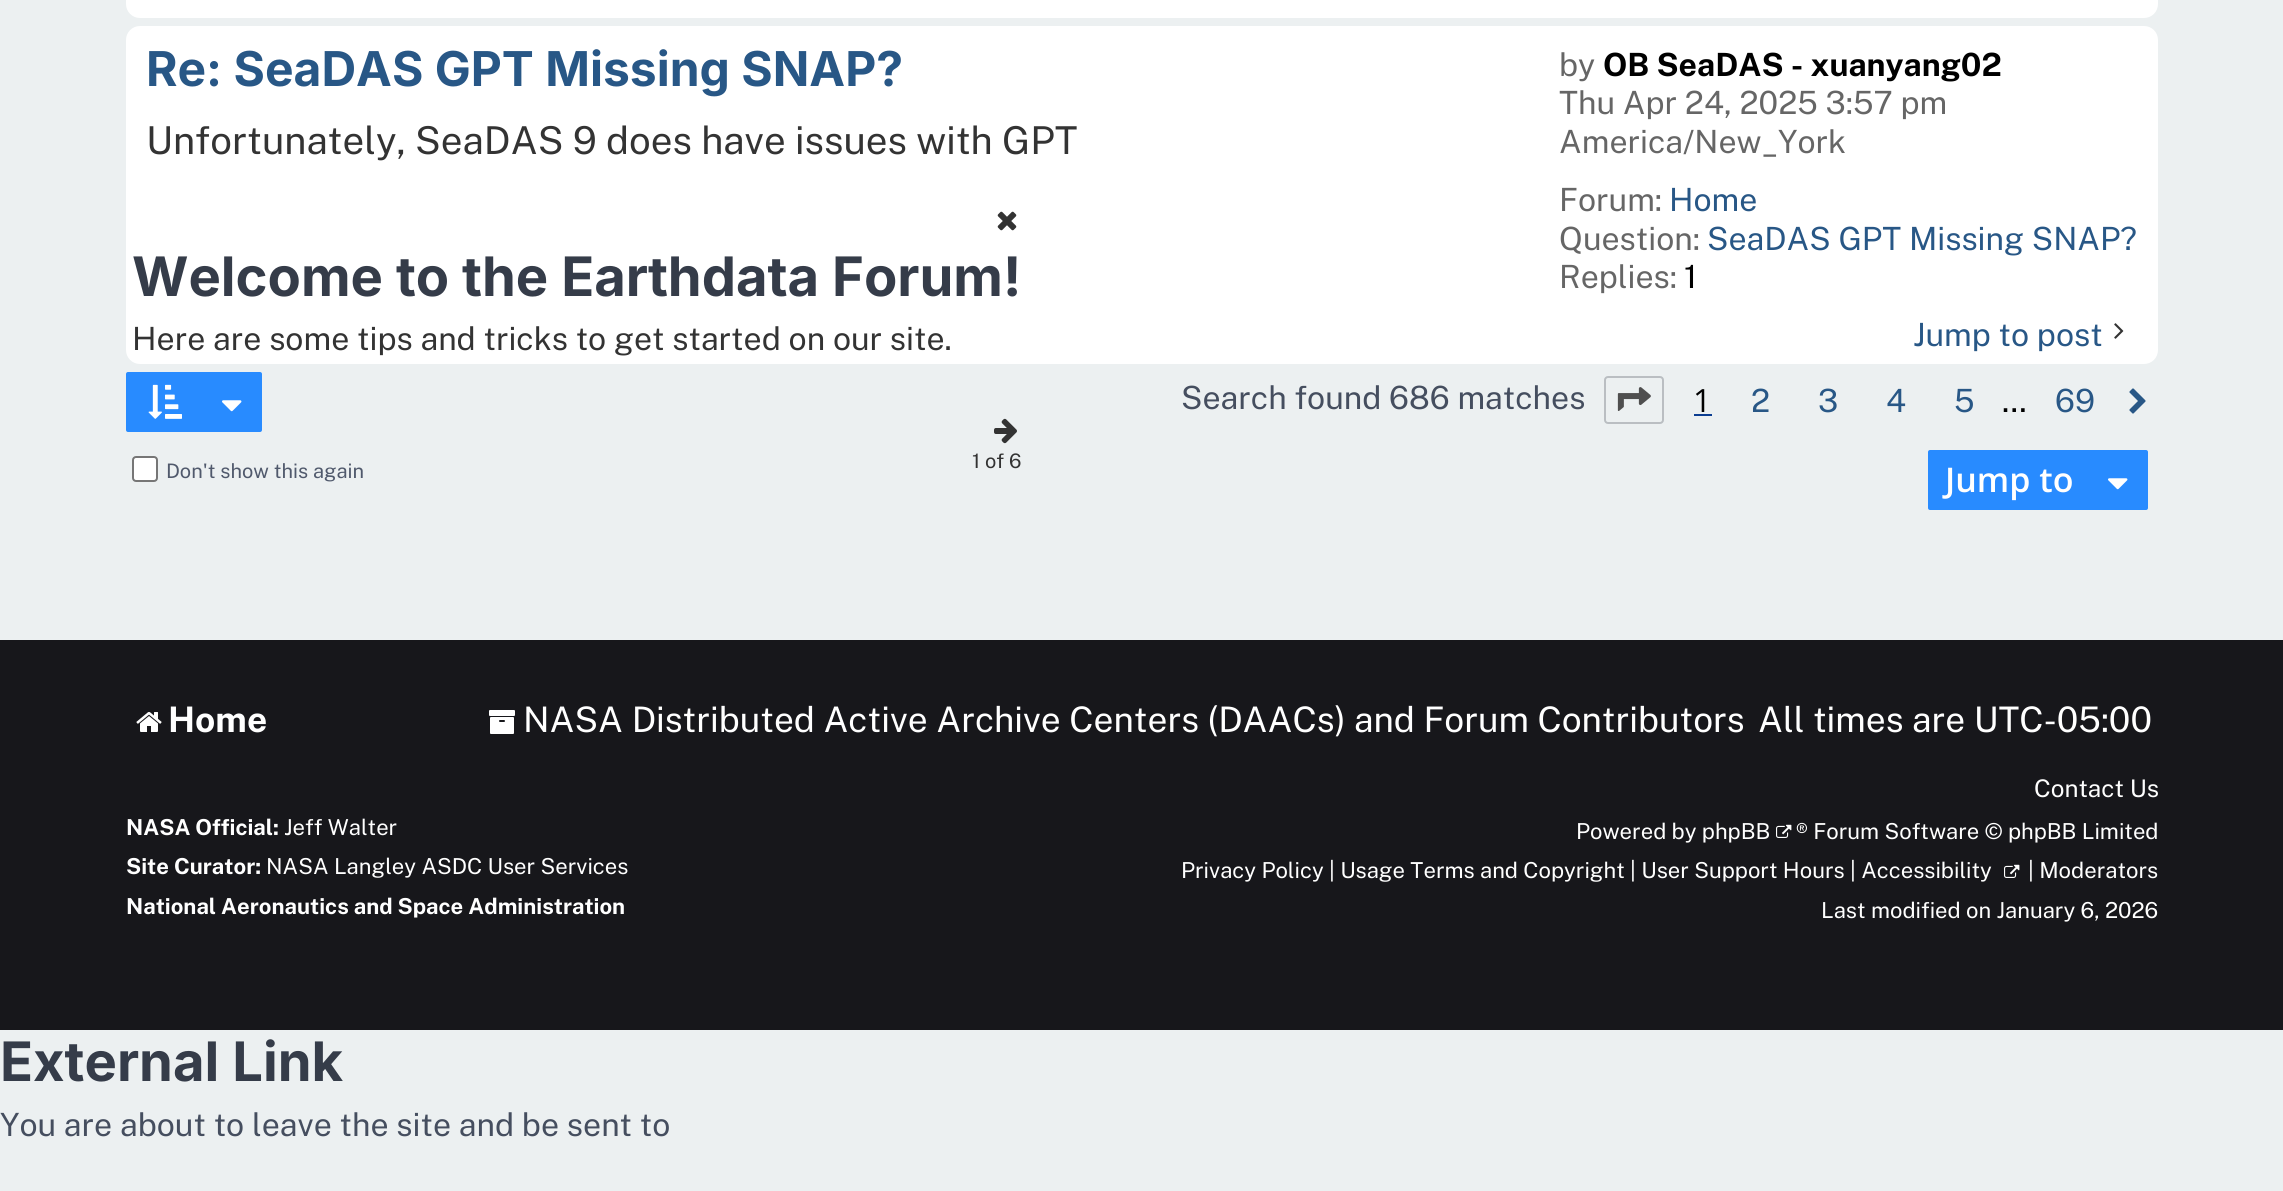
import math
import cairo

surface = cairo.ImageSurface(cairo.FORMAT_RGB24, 2283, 1191)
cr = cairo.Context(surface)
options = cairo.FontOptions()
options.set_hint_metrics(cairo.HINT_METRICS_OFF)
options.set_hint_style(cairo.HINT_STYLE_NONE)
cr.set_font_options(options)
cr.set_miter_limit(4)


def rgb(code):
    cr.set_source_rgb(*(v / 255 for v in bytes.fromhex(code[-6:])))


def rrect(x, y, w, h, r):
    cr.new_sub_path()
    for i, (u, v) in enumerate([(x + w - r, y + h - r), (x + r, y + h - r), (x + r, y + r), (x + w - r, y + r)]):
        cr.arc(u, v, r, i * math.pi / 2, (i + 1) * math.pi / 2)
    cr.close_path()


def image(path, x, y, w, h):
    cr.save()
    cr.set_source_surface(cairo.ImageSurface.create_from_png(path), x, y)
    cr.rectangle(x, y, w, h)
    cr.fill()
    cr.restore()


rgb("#ecf0f1")
cr.paint()
rgb("#ffffff")
rrect(126, -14, 2032, 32, 14)
cr.fill()
rrect(126, 26, 2032, 338, 14)
cr.fill()
image("img/1.png", 2114, 323, 10, 16)
rgb("#288bff")
rrect(127, 373, 134, 58, 1)
cr.fill_preserve()
cr.stroke()
image("img/2.png", 148, 384, 34, 35)
image("img/3.png", 222, 400, 20, 12)
rrect(1605, 377, 58, 46, 3)
rgb("#babec2")
cr.stroke()
image("img/4.png", 1617, 387, 34, 24)
rgb("#0b3d91")
cr.rectangle(1694, 414, 18, 2)
cr.fill()
image("img/5.png", 2129, 388, 17, 26)
rgb("#288bff")
rrect(1929, 451, 218, 58, 1)
cr.fill_preserve()
cr.stroke()
image("img/3.png", 2108, 478, 20, 12)
image("img/6.png", 997, 211, 20, 20)
image("img/7.png", 994, 418, 23, 26)
rgb("#ffffff")
rrect(133, 457, 24, 24, 3)
cr.fill_preserve()
rgb("#767676")
cr.stroke()
rgb("#17171b")
cr.rectangle(0, 640, 2283, 130)
cr.fill()
image("img/8.png", 136, 712, 26, 20)
image("img/9.png", 489, 710, 26, 24)
cr.rectangle(0, 770, 2283, 260)
cr.fill()
image("img/10.png", 1776, 824, 16, 14)
image("img/10.png", 2004, 864, 16, 14)
cr.select_font_face("Inter", cairo.FONT_SLANT_NORMAL, cairo.FONT_WEIGHT_BOLD)
cr.set_font_size(48)
rgb("#285786")
cr.move_to(146, 86)
cr.show_text("Re: SeaDAS GPT Missing SNAP?")
cr.select_font_face("Public Sans")
cr.set_font_size(38.4)
rgb("#333333")
cr.move_to(146, 154)
cr.show_text("Unfortunately, SeaDAS 9 does have issues with GPT")
cr.set_font_size(32)
rgb("#666666")
cr.move_to(1559, 76)
cr.show_text("by")
cr.select_font_face("Public Sans", cairo.FONT_SLANT_NORMAL, cairo.FONT_WEIGHT_BOLD)
rgb("#000000")
cr.move_to(1603, 76)
cr.show_text("OB SeaDAS - xuanyang02")
cr.select_font_face("Public Sans")
rgb("#666666")
for x, y, s in [
    (1559, 114, "Thu Apr 24, 2025 3:57 pm"),
    (1559, 153, "America/New_York"),
    (1559, 211, "Forum:"),
]:
    cr.move_to(x, y)
    cr.show_text(s)
rgb("#285786")
cr.move_to(1669, 211)
cr.show_text("Home")
rgb("#666666")
cr.move_to(1559, 250)
cr.show_text("Question:")
rgb("#285786")
cr.move_to(1707, 250)
cr.show_text("SeaDAS GPT Missing SNAP?")
rgb("#666666")
cr.move_to(1559, 288)
cr.show_text("Replies:")
rgb("#000000")
cr.move_to(1684, 288)
cr.show_text("1")
rgb("#285786")
cr.move_to(1913, 346)
cr.show_text("Jump to post")
rgb("#454e5f")
cr.move_to(1181, 409)
cr.show_text("Search found 686 matches")
cr.select_font_face("Open Sans")
rgb("#000000")
cr.move_to(1693, 412)
cr.show_text("1")
cr.select_font_face("Public Sans")
rgb("#285786")
for x, y, s in [
    (1751, 412, "2"),
    (1818, 412, "3"),
    (1886, 412, "4"),
    (1954, 412, "5"),
]:
    cr.move_to(x, y)
    cr.show_text(s)
rgb("#000000")
cr.move_to(2002, 412)
cr.show_text("…")
rgb("#285786")
cr.move_to(2055, 412)
cr.show_text("69")
cr.select_font_face("Open Sans SemiBold")
cr.set_font_size(34)
rgb("#ffffff")
cr.move_to(1945, 492)
cr.show_text("Jump to")
cr.select_font_face("Inter", cairo.FONT_SLANT_NORMAL, cairo.FONT_WEIGHT_BOLD)
cr.set_font_size(54.4)
rgb("#353c49")
cr.move_to(132, 296)
cr.show_text("Welcome to the Earthdata Forum!")
cr.select_font_face("Public Sans")
cr.set_font_size(32)
rgb("#333333")
cr.move_to(132, 350)
cr.show_text("Here are some tips and tricks to get started on our site.")
cr.set_font_size(20)
cr.move_to(972, 468)
cr.show_text("1 of 6")
rgb("#50596c")
cr.move_to(166, 478)
cr.show_text("Don't show this again")
cr.select_font_face("Public Sans", cairo.FONT_SLANT_NORMAL, cairo.FONT_WEIGHT_BOLD)
cr.set_font_size(35.2)
rgb("#ffffff")
cr.move_to(168, 732)
cr.show_text("Home")
cr.select_font_face("Public Sans")
cr.move_to(523, 732)
cr.show_text("NASA Distributed Active Archive Centers (DAACs) and Forum Contributors")
cr.move_to(1758, 732)
cr.show_text("All times are UTC-05:00")
cr.select_font_face("Public Sans", cairo.FONT_SLANT_NORMAL, cairo.FONT_WEIGHT_BOLD)
cr.set_font_size(22)
cr.move_to(126, 835)
cr.show_text("NASA Official:")
cr.select_font_face("Public Sans")
cr.move_to(284, 835)
cr.show_text("Jeff Walter")
cr.select_font_face("Public Sans", cairo.FONT_SLANT_NORMAL, cairo.FONT_WEIGHT_BOLD)
cr.move_to(126, 874)
cr.show_text("Site Curator:")
cr.select_font_face("Public Sans")
cr.move_to(266, 874)
cr.show_text("NASA Langley ASDC User Services")
cr.select_font_face("Public Sans", cairo.FONT_SLANT_NORMAL, cairo.FONT_WEIGHT_BOLD)
cr.move_to(126, 914)
cr.show_text("National Aeronautics and Space Administration")
cr.select_font_face("Public Sans")
cr.set_font_size(24.25)
cr.move_to(2034, 797)
cr.show_text("Contact Us")
cr.set_font_size(22)
for x, y, s in [
    (1576, 839, "Powered by phpBB"),
    (1796, 839, "® Forum Software © phpBB Limited"),
    (1181, 878, "Privacy Policy | Usage Terms and Copyright | User Support Hours | Accessibility"),
    (2028, 878, "| Moderators"),
    (1821, 918, "Last modified on January 6, 2026"),
]:
    cr.move_to(x, y)
    cr.show_text(s)
cr.select_font_face("Inter", cairo.FONT_SLANT_NORMAL, cairo.FONT_WEIGHT_BOLD)
cr.set_font_size(54.4)
rgb("#353c49")
cr.move_to(0, 1081)
cr.show_text("External Link")
cr.select_font_face("Public Sans")
cr.set_font_size(32)
rgb("#454e5f")
cr.move_to(0, 1136)
cr.show_text("You are about to leave the site and be sent to")
surface.write_to_png("page.png")
